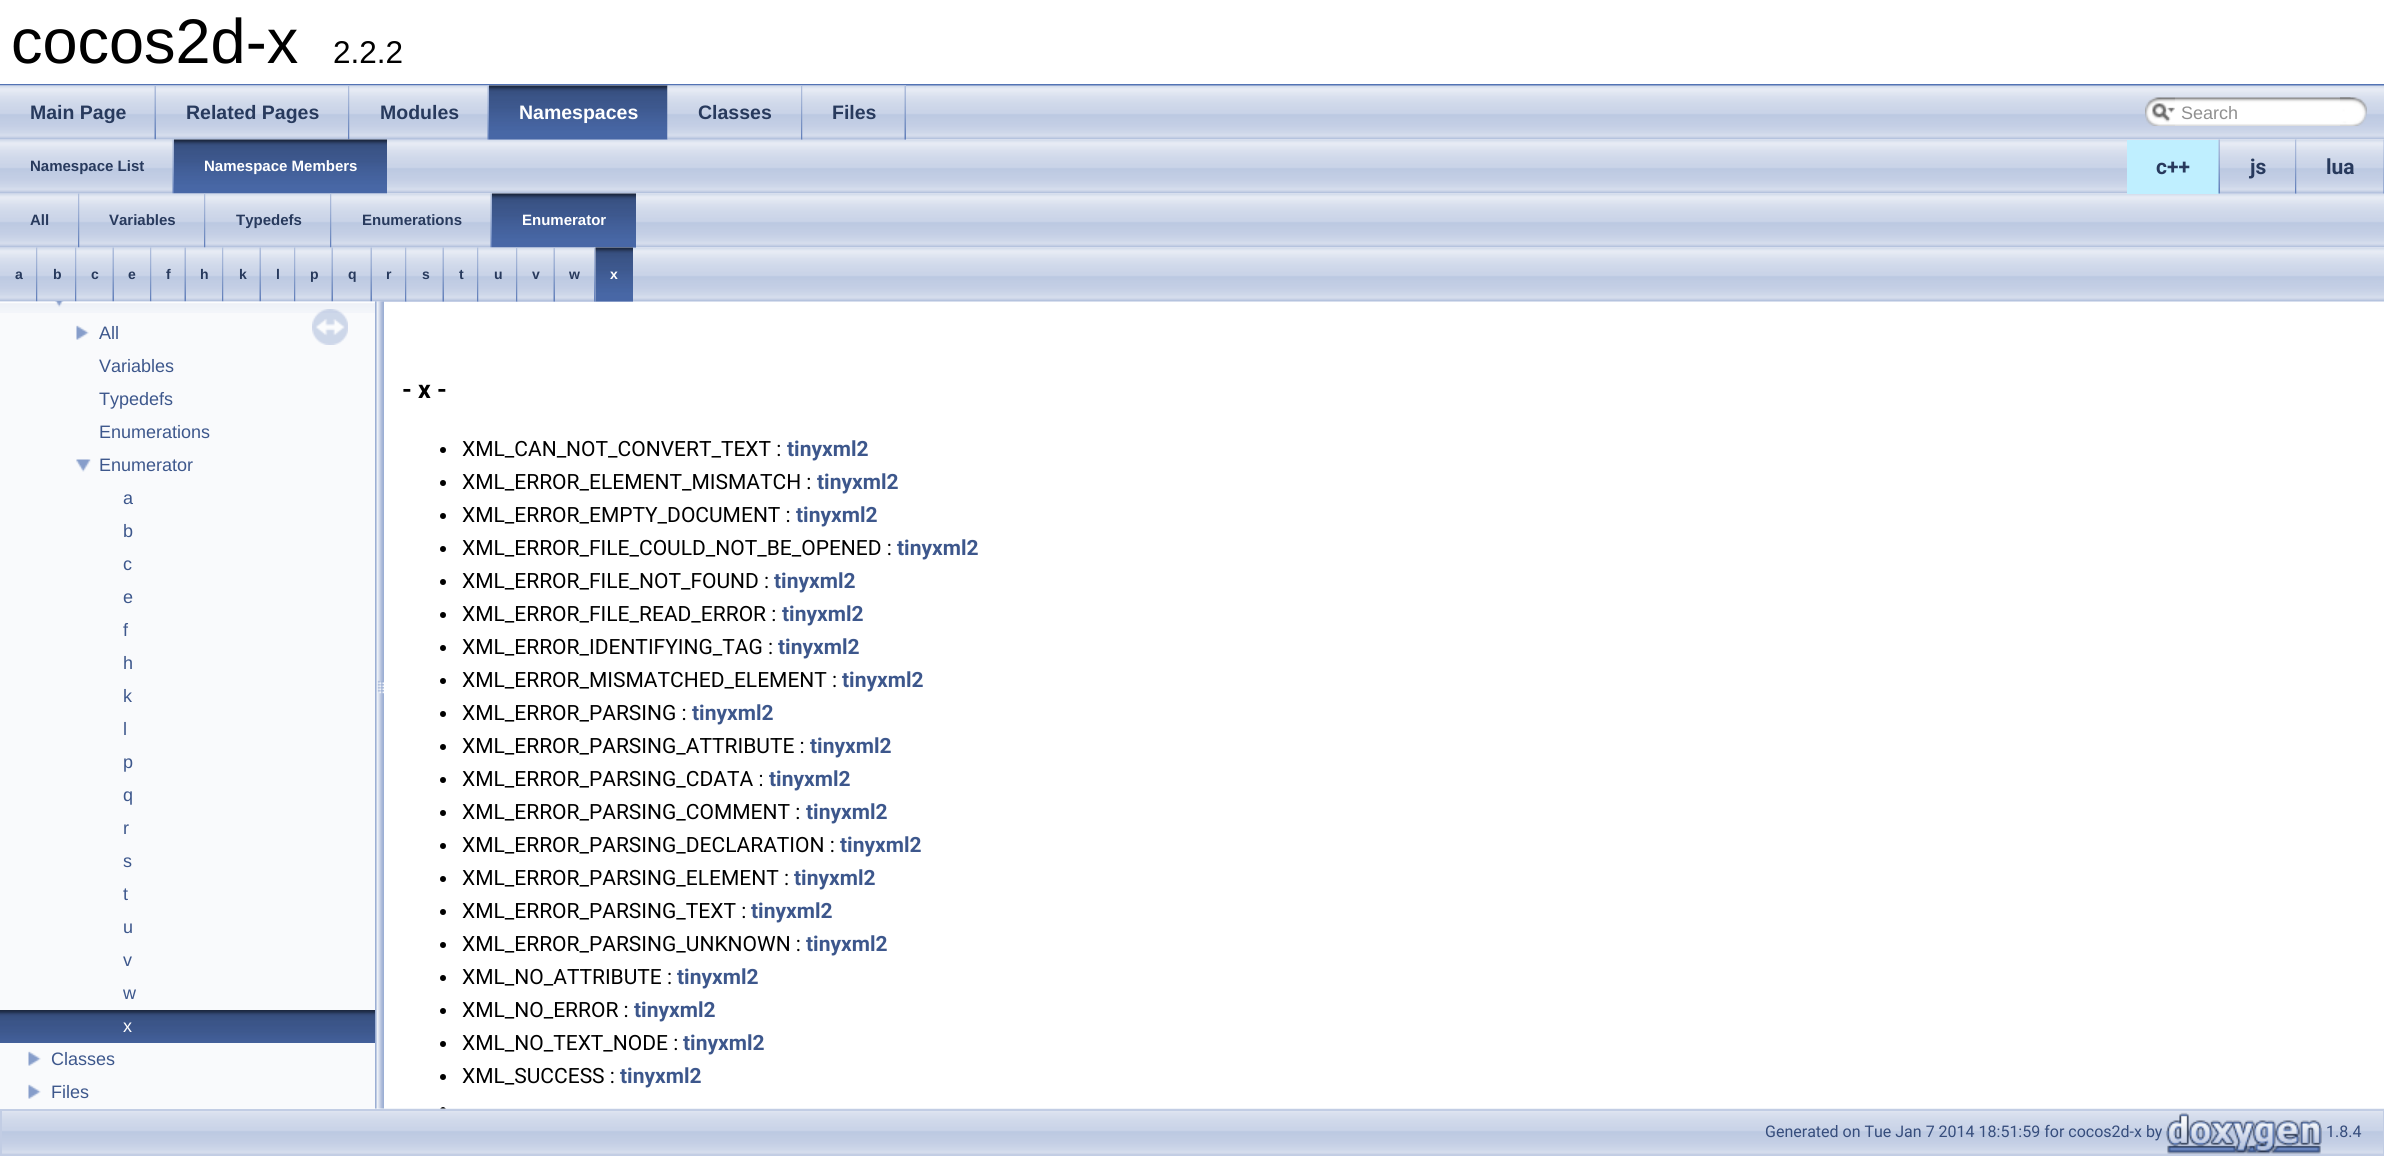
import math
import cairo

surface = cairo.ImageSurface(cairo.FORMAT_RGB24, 2384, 1156)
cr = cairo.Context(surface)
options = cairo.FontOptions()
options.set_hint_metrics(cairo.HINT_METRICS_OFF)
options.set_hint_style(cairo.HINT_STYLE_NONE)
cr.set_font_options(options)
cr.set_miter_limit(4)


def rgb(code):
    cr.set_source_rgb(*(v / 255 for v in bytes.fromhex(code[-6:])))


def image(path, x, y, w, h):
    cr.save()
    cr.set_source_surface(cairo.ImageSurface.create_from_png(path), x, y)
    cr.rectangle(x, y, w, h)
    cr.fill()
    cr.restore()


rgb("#ffffff")
cr.paint()
rgb("#5373b4")
cr.rectangle(0, 84, 2384, 2)
cr.fill()
image("img/1.png", 0, 85, 2384, 55)
image("img/2.png", 0, 85, 156, 55)
image("img/3.png", 154, 86, 2, 54)
image("img/4.png", 156, 85, 194, 55)
image("img/5.png", 348, 86, 2, 54)
image("img/6.png", 349, 85, 140, 55)
image("img/3.png", 487, 86, 2, 54)
image("img/7.png", 489, 85, 179, 55)
image("img/8.png", 489, 85, 179, 55)
image("img/9.png", 667, 85, 136, 55)
image("img/5.png", 801, 86, 2, 54)
image("img/10.png", 802, 85, 104, 55)
image("img/3.png", 904, 86, 2, 54)
image("img/11.png", 2145, 97, 30, 29)
image("img/12.png", 2152, 103, 23, 19)
image("img/13.png", 2175, 97, 176, 29)
image("img/14.png", 2340, 97, 27, 29)
image("img/15.png", 0, 140, 2384, 54)
image("img/16.png", 0, 139, 174, 55)
image("img/17.png", 172, 139, 2, 55)
image("img/18.png", 174, 139, 213, 55)
image("img/19.png", 174, 139, 213, 55)
rgb("#bfefff")
cr.rectangle(2127, 140, 93, 54)
cr.fill()
image("img/20.png", 2218, 139, 2, 55)
image("img/21.png", 2220, 193, 77, 1)
image("img/22.png", 2295, 139, 2, 55)
image("img/23.png", 2296, 140, 88, 54)
image("img/24.png", 2383, 139, 1, 55)
image("img/15.png", 0, 194, 2384, 54)
image("img/25.png", 0, 193, 80, 55)
image("img/26.png", 78, 193, 2, 55)
image("img/27.png", 79, 193, 127, 55)
image("img/28.png", 204, 193, 2, 55)
image("img/29.png", 205, 193, 127, 55)
image("img/28.png", 330, 193, 2, 55)
image("img/30.png", 331, 193, 161, 55)
image("img/31.png", 490, 193, 2, 55)
rgb("#c4cfe5")
cr.rectangle(492, 247, 144, 1)
cr.fill()
image("img/32.png", 492, 193, 144, 55)
image("img/15.png", 0, 248, 2384, 54)
image("img/33.png", 0, 247, 38, 55)
image("img/26.png", 36, 247, 2, 55)
image("img/34.png", 37, 247, 40, 55)
image("img/26.png", 75, 247, 2, 55)
image("img/35.png", 76, 247, 38, 55)
image("img/17.png", 112, 247, 2, 55)
image("img/33.png", 114, 247, 38, 55)
image("img/26.png", 150, 247, 2, 55)
image("img/36.png", 151, 247, 35, 55)
image("img/17.png", 184, 247, 2, 55)
image("img/37.png", 186, 247, 38, 55)
image("img/26.png", 222, 247, 2, 55)
image("img/38.png", 223, 247, 38, 55)
image("img/17.png", 259, 247, 2, 55)
image("img/39.png", 261, 247, 35, 55)
image("img/26.png", 294, 247, 2, 55)
image("img/40.png", 295, 247, 38, 55)
image("img/41.png", 331, 247, 2, 55)
image("img/42.png", 333, 247, 39, 55)
image("img/17.png", 370, 247, 2, 55)
image("img/39.png", 372, 247, 35, 55)
image("img/26.png", 405, 247, 2, 55)
image("img/38.png", 406, 247, 38, 55)
image("img/17.png", 442, 247, 2, 55)
image("img/39.png", 444, 247, 35, 55)
image("img/26.png", 477, 247, 2, 55)
image("img/43.png", 478, 247, 40, 55)
image("img/28.png", 516, 247, 2, 55)
image("img/44.png", 517, 247, 38, 55)
image("img/3.png", 553, 248, 2, 54)
image("img/45.png", 555, 247, 41, 55)
image("img/28.png", 594, 247, 2, 55)
image("img/44.png", 595, 247, 38, 55)
image("img/46.png", 595, 247, 38, 55)
rgb("#000000")
cr.new_path()
cr.move_to(443, 1107)
cr.curve_to(444.5, 1107, 446, 1108.5, 446, 1110)
cr.line_to(446, 1109)
cr.line_to(440, 1109)
cr.line_to(440, 1110)
cr.curve_to(440, 1108.5, 441.5, 1107, 443, 1107)
cr.close_path()
cr.fill()
image("img/54.png", 2, 1108, 2382, 47)
rgb("#f9fafc")
cr.rectangle(0, 313, 375, 796)
cr.fill()
image("img/47.png", 0, 301, 375, 12)
image("img/48.png", 55, 301, 9, 6)
image("img/49.png", 76, 325, 13, 15)
image("img/50.png", 76, 459, 15, 13)
image("img/51.png", 0, 1010, 375, 33)
image("img/49.png", 28, 1051, 13, 15)
image("img/49.png", 28, 1084, 13, 15)
image("img/52.png", 312, 309, 36, 36)
image("img/53.png", 375, 301, 9, 808)
rgb("#000000")
cr.arc(443, 450, 3, 0, 2 * math.pi)
cr.fill()
cr.arc(443, 483, 3, 0, 2 * math.pi)
cr.fill()
cr.arc(443, 516, 3, 0, 2 * math.pi)
cr.fill()
cr.arc(443, 549, 3, 0, 2 * math.pi)
cr.fill()
cr.arc(443, 582, 3, 0, 2 * math.pi)
cr.fill()
cr.arc(443, 615, 3, 0, 2 * math.pi)
cr.fill()
cr.arc(443, 648, 3, 0, 2 * math.pi)
cr.fill()
cr.arc(443, 681, 3, 0, 2 * math.pi)
cr.fill()
cr.arc(443, 714, 3, 0, 2 * math.pi)
cr.fill()
cr.arc(443, 747, 3, 0, 2 * math.pi)
cr.fill()
cr.arc(443, 780, 3, 0, 2 * math.pi)
cr.fill()
cr.arc(443, 813, 3, 0, 2 * math.pi)
cr.fill()
cr.arc(443, 846, 3, 0, 2 * math.pi)
cr.fill()
cr.arc(443, 879, 3, 0, 2 * math.pi)
cr.fill()
cr.arc(443, 912, 3, 0, 2 * math.pi)
cr.fill()
cr.arc(443, 945, 3, 0, 2 * math.pi)
cr.fill()
cr.arc(443, 978, 3, 0, 2 * math.pi)
cr.fill()
cr.arc(443, 1011, 3, 0, 2 * math.pi)
cr.fill()
cr.arc(443, 1044, 3, 0, 2 * math.pi)
cr.fill()
cr.arc(443, 1077, 3, 0, 2 * math.pi)
cr.fill()
cr.rectangle(1, 1110, 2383, 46)
rgb("#c2cde4")
cr.stroke()
image("img/55.png", 2166, 1112, 156, 42)
cr.select_font_face("Liberation Sans")
cr.set_font_size(63)
rgb("#000000")
cr.move_to(11, 63)
cr.show_text("cocos2d-x")
cr.set_font_size(31.5)
cr.move_to(333, 63)
cr.show_text("2.2.2")
cr.select_font_face("Liberation Sans", cairo.FONT_SLANT_NORMAL, cairo.FONT_WEIGHT_BOLD)
cr.set_font_size(19.5)
rgb("#283a5d")
for x, y, s in [
    (30, 119, "Main Page"),
    (186, 119, "Related Pages"),
    (380, 119, "Modules"),
]:
    cr.move_to(x, y)
    cr.show_text(s)
rgb("#ffffff")
cr.move_to(519, 119)
cr.show_text("Namespaces")
rgb("#283a5d")
cr.move_to(698, 119)
cr.show_text("Classes")
cr.move_to(832, 119)
cr.show_text("Files")
cr.select_font_face("Liberation Sans")
cr.set_font_size(18)
rgb("#909090")
cr.move_to(2181, 119)
cr.show_text("Search")
cr.select_font_face("Liberation Sans", cairo.FONT_SLANT_NORMAL, cairo.FONT_WEIGHT_BOLD)
cr.set_font_size(15)
rgb("#283a5d")
cr.move_to(30, 171)
cr.show_text("Namespace List")
rgb("#ffffff")
cr.move_to(204, 171)
cr.show_text("Namespace Members")
cr.select_font_face("Roboto", cairo.FONT_SLANT_NORMAL, cairo.FONT_WEIGHT_BOLD)
cr.set_font_size(21)
rgb("#283a5d")
for x, y, s in [
    (2156, 174, "c++"),
    (2250, 174, "js"),
    (2326, 174, "lua"),
]:
    cr.move_to(x, y)
    cr.show_text(s)
cr.select_font_face("Liberation Sans", cairo.FONT_SLANT_NORMAL, cairo.FONT_WEIGHT_BOLD)
cr.set_font_size(15)
for x, y, s in [
    (30, 225, "All"),
    (109, 225, "Variables"),
    (236, 225, "Typedefs"),
    (362, 225, "Enumerations"),
]:
    cr.move_to(x, y)
    cr.show_text(s)
rgb("#ffffff")
cr.move_to(522, 225)
cr.show_text("Enumerator")
cr.set_font_size(14)
rgb("#283a5d")
for x, y, s in [
    (15, 279, "a"),
    (53, 279, "b"),
    (91, 279, "c"),
    (128, 279, "e"),
    (166, 279, "f"),
    (200, 279, "h"),
    (239, 279, "k"),
    (276, 279, "l"),
    (310, 279, "p"),
    (348, 279, "q"),
    (386, 279, "r"),
    (422, 279, "s"),
    (459, 279, "t"),
    (494, 279, "u"),
    (532, 279, "v"),
    (569, 279, "w"),
]:
    cr.move_to(x, y)
    cr.show_text(s)
rgb("#ffffff")
cr.move_to(610, 279)
cr.show_text("x")
cr.select_font_face("Liberation Sans")
cr.set_font_size(18)
rgb("#3d578c")
for x, y, s in [
    (99, 339, "All"),
    (99, 372, "Variables"),
    (99, 405, "Typedefs"),
    (99, 438, "Enumerations"),
    (99, 471, "Enumerator"),
    (123, 504, "a"),
    (123, 537, "b"),
    (123, 570, "c"),
    (123, 603, "e"),
    (123, 636, "f"),
    (123, 669, "h"),
    (123, 702, "k"),
    (123, 735, "l"),
    (123, 768, "p"),
    (123, 801, "q"),
    (123, 834, "r"),
    (123, 867, "s"),
    (123, 900, "t"),
    (123, 933, "u"),
    (123, 966, "v"),
    (123, 999, "w"),
]:
    cr.move_to(x, y)
    cr.show_text(s)
rgb("#ffffff")
cr.move_to(123, 1032)
cr.show_text("x")
rgb("#3d578c")
cr.move_to(51, 1065)
cr.show_text("Classes")
cr.move_to(51, 1098)
cr.show_text("Files")
cr.select_font_face("Roboto", cairo.FONT_SLANT_NORMAL, cairo.FONT_WEIGHT_BOLD)
cr.set_font_size(25)
rgb("#000000")
cr.move_to(402, 398)
cr.show_text("- x -")
cr.select_font_face("Roboto")
cr.set_font_size(21)
cr.move_to(462, 456)
cr.show_text("XML_CAN_NOT_CONVERT_TEXT :")
cr.select_font_face("Roboto", cairo.FONT_SLANT_NORMAL, cairo.FONT_WEIGHT_BOLD)
rgb("#3d578c")
cr.move_to(787, 456)
cr.show_text("tinyxml2")
cr.select_font_face("Roboto")
rgb("#000000")
cr.move_to(462, 489)
cr.show_text("XML_ERROR_ELEMENT_MISMATCH :")
cr.select_font_face("Roboto", cairo.FONT_SLANT_NORMAL, cairo.FONT_WEIGHT_BOLD)
rgb("#3d578c")
cr.move_to(817, 489)
cr.show_text("tinyxml2")
cr.select_font_face("Roboto")
rgb("#000000")
cr.move_to(462, 522)
cr.show_text("XML_ERROR_EMPTY_DOCUMENT :")
cr.select_font_face("Roboto", cairo.FONT_SLANT_NORMAL, cairo.FONT_WEIGHT_BOLD)
rgb("#3d578c")
cr.move_to(796, 522)
cr.show_text("tinyxml2")
cr.select_font_face("Roboto")
rgb("#000000")
cr.move_to(462, 555)
cr.show_text("XML_ERROR_FILE_COULD_NOT_BE_OPENED :")
cr.select_font_face("Roboto", cairo.FONT_SLANT_NORMAL, cairo.FONT_WEIGHT_BOLD)
rgb("#3d578c")
cr.move_to(897, 555)
cr.show_text("tinyxml2")
cr.select_font_face("Roboto")
rgb("#000000")
cr.move_to(462, 588)
cr.show_text("XML_ERROR_FILE_NOT_FOUND :")
cr.select_font_face("Roboto", cairo.FONT_SLANT_NORMAL, cairo.FONT_WEIGHT_BOLD)
rgb("#3d578c")
cr.move_to(774, 588)
cr.show_text("tinyxml2")
cr.select_font_face("Roboto")
rgb("#000000")
cr.move_to(462, 621)
cr.show_text("XML_ERROR_FILE_READ_ERROR :")
cr.select_font_face("Roboto", cairo.FONT_SLANT_NORMAL, cairo.FONT_WEIGHT_BOLD)
rgb("#3d578c")
cr.move_to(782, 621)
cr.show_text("tinyxml2")
cr.select_font_face("Roboto")
rgb("#000000")
cr.move_to(462, 654)
cr.show_text("XML_ERROR_IDENTIFYING_TAG :")
cr.select_font_face("Roboto", cairo.FONT_SLANT_NORMAL, cairo.FONT_WEIGHT_BOLD)
rgb("#3d578c")
cr.move_to(778, 654)
cr.show_text("tinyxml2")
cr.select_font_face("Roboto")
rgb("#000000")
cr.move_to(462, 687)
cr.show_text("XML_ERROR_MISMATCHED_ELEMENT :")
cr.select_font_face("Roboto", cairo.FONT_SLANT_NORMAL, cairo.FONT_WEIGHT_BOLD)
rgb("#3d578c")
cr.move_to(842, 687)
cr.show_text("tinyxml2")
cr.select_font_face("Roboto")
rgb("#000000")
cr.move_to(462, 720)
cr.show_text("XML_ERROR_PARSING :")
cr.select_font_face("Roboto", cairo.FONT_SLANT_NORMAL, cairo.FONT_WEIGHT_BOLD)
rgb("#3d578c")
cr.move_to(692, 720)
cr.show_text("tinyxml2")
cr.select_font_face("Roboto")
rgb("#000000")
cr.move_to(462, 753)
cr.show_text("XML_ERROR_PARSING_ATTRIBUTE :")
cr.select_font_face("Roboto", cairo.FONT_SLANT_NORMAL, cairo.FONT_WEIGHT_BOLD)
rgb("#3d578c")
cr.move_to(810, 753)
cr.show_text("tinyxml2")
cr.select_font_face("Roboto")
rgb("#000000")
cr.move_to(462, 786)
cr.show_text("XML_ERROR_PARSING_CDATA :")
cr.select_font_face("Roboto", cairo.FONT_SLANT_NORMAL, cairo.FONT_WEIGHT_BOLD)
rgb("#3d578c")
cr.move_to(769, 786)
cr.show_text("tinyxml2")
cr.select_font_face("Roboto")
rgb("#000000")
cr.move_to(462, 819)
cr.show_text("XML_ERROR_PARSING_COMMENT :")
cr.select_font_face("Roboto", cairo.FONT_SLANT_NORMAL, cairo.FONT_WEIGHT_BOLD)
rgb("#3d578c")
cr.move_to(806, 819)
cr.show_text("tinyxml2")
cr.select_font_face("Roboto")
rgb("#000000")
cr.move_to(462, 852)
cr.show_text("XML_ERROR_PARSING_DECLARATION :")
cr.select_font_face("Roboto", cairo.FONT_SLANT_NORMAL, cairo.FONT_WEIGHT_BOLD)
rgb("#3d578c")
cr.move_to(840, 852)
cr.show_text("tinyxml2")
cr.select_font_face("Roboto")
rgb("#000000")
cr.move_to(462, 885)
cr.show_text("XML_ERROR_PARSING_ELEMENT :")
cr.select_font_face("Roboto", cairo.FONT_SLANT_NORMAL, cairo.FONT_WEIGHT_BOLD)
rgb("#3d578c")
cr.move_to(794, 885)
cr.show_text("tinyxml2")
cr.select_font_face("Roboto")
rgb("#000000")
cr.move_to(462, 918)
cr.show_text("XML_ERROR_PARSING_TEXT :")
cr.select_font_face("Roboto", cairo.FONT_SLANT_NORMAL, cairo.FONT_WEIGHT_BOLD)
rgb("#3d578c")
cr.move_to(751, 918)
cr.show_text("tinyxml2")
cr.select_font_face("Roboto")
rgb("#000000")
cr.move_to(462, 951)
cr.show_text("XML_ERROR_PARSING_UNKNOWN :")
cr.select_font_face("Roboto", cairo.FONT_SLANT_NORMAL, cairo.FONT_WEIGHT_BOLD)
rgb("#3d578c")
cr.move_to(806, 951)
cr.show_text("tinyxml2")
cr.select_font_face("Roboto")
rgb("#000000")
cr.move_to(462, 984)
cr.show_text("XML_NO_ATTRIBUTE :")
cr.select_font_face("Roboto", cairo.FONT_SLANT_NORMAL, cairo.FONT_WEIGHT_BOLD)
rgb("#3d578c")
cr.move_to(677, 984)
cr.show_text("tinyxml2")
cr.select_font_face("Roboto")
rgb("#000000")
cr.move_to(462, 1017)
cr.show_text("XML_NO_ERROR :")
cr.select_font_face("Roboto", cairo.FONT_SLANT_NORMAL, cairo.FONT_WEIGHT_BOLD)
rgb("#3d578c")
cr.move_to(634, 1017)
cr.show_text("tinyxml2")
cr.select_font_face("Roboto")
rgb("#000000")
cr.move_to(462, 1050)
cr.show_text("XML_NO_TEXT_NODE :")
cr.select_font_face("Roboto", cairo.FONT_SLANT_NORMAL, cairo.FONT_WEIGHT_BOLD)
rgb("#3d578c")
cr.move_to(683, 1050)
cr.show_text("tinyxml2")
cr.select_font_face("Roboto")
rgb("#000000")
cr.move_to(462, 1083)
cr.show_text("XML_SUCCESS :")
cr.select_font_face("Roboto", cairo.FONT_SLANT_NORMAL, cairo.FONT_WEIGHT_BOLD)
rgb("#3d578c")
cr.move_to(620, 1083)
cr.show_text("tinyxml2")
cr.select_font_face("Roboto")
cr.set_font_size(16)
rgb("#364d7c")
cr.move_to(1765, 1137)
cr.show_text("Generated on Tue Jan 7 2014 18:51:59 for cocos2d-x by")
cr.move_to(2326, 1137)
cr.show_text("1.8.4")
surface.write_to_png("page.png")
